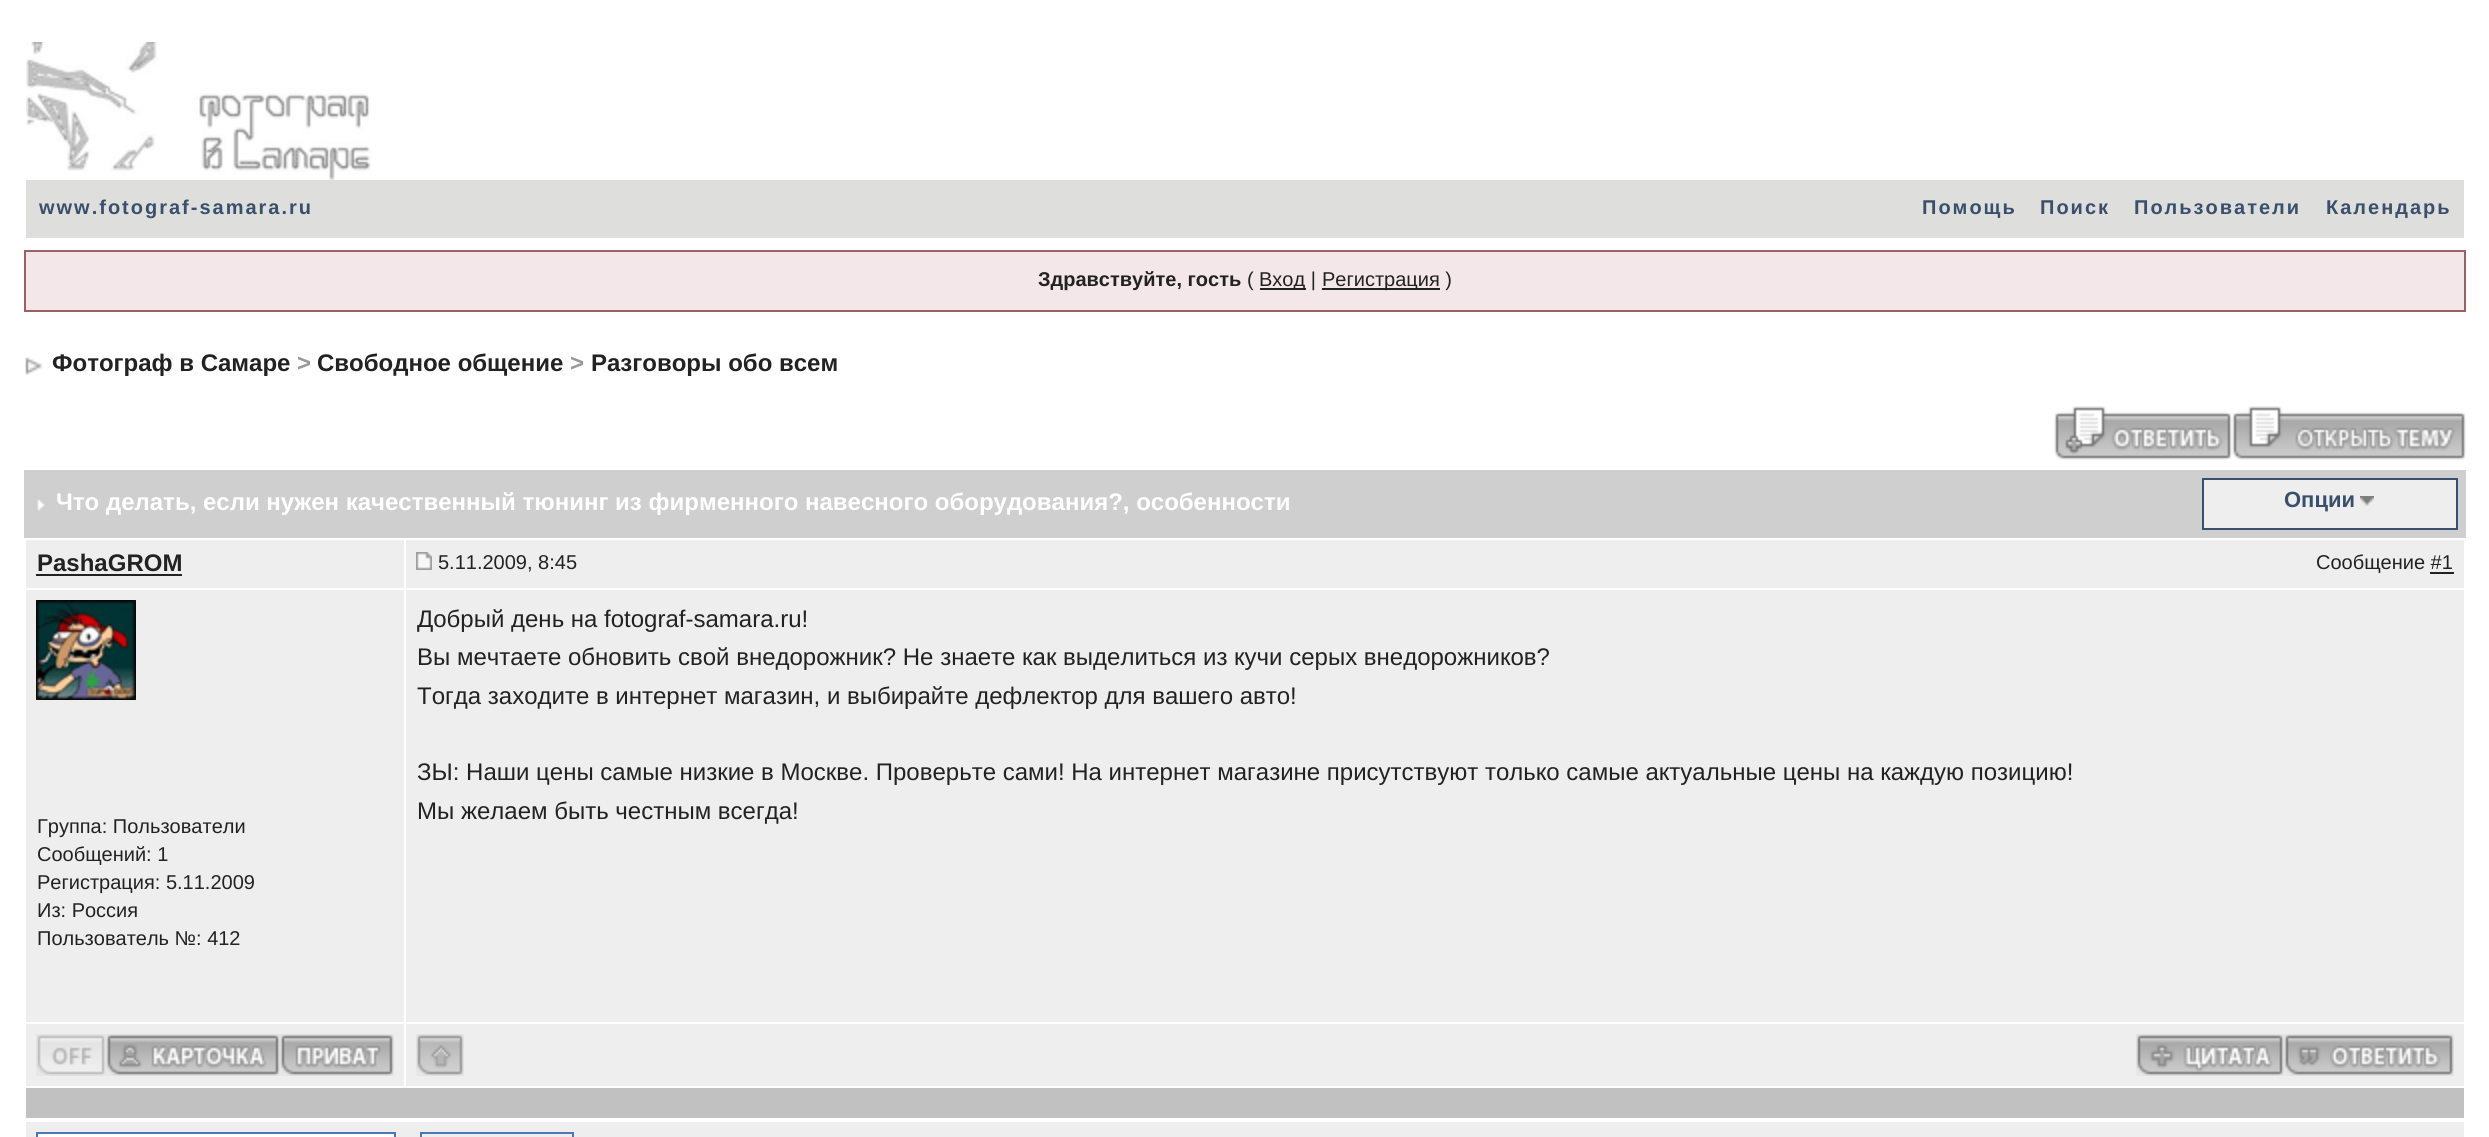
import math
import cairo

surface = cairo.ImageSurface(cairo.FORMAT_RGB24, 2489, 1137)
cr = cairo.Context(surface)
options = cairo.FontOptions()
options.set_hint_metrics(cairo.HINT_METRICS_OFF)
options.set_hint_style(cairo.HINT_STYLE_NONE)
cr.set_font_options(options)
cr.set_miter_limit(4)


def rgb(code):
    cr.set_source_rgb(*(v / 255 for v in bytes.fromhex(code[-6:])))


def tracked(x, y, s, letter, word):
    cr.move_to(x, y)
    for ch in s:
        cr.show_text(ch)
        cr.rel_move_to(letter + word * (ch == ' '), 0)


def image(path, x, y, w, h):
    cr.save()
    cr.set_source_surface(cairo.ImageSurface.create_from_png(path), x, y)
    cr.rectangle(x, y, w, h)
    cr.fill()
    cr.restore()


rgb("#ffffff")
cr.paint()
image("img/1.png", 26, 42, 345, 138)
rgb("#dededc")
cr.rectangle(26, 180, 2438, 58)
cr.fill()
rgb("#f4e7ea")
cr.rectangle(25, 251, 2440, 60)
cr.fill_preserve()
rgb("#986265")
cr.stroke()
rgb("#222222")
cr.rectangle(1260, 288, 46, 2)
cr.fill()
cr.rectangle(1322, 288, 118, 2)
cr.fill()
image("img/2.png", 25, 357, 18, 18)
image("img/3.png", 2054, 406, 178, 54)
image("img/4.png", 2232, 406, 234, 54)
rgb("#cfcfcf")
cr.rectangle(24, 470, 2442, 68)
cr.fill()
image("img/5.png", 37, 499, 8, 12)
rgb("#eeeeee")
cr.rectangle(2203, 479, 254, 50)
cr.fill_preserve()
rgb("#3a4f6c")
cr.stroke()
image("img/6.png", 2360, 496, 14, 10)
for x, y, w, h, color in [
    (26, 540, 378, 48, "#eeeeee"),
    (36, 574, 146, 2, "#222222"),
    (406, 540, 2058, 48, "#eeeeee"),
]:
    rgb(color)
    cr.rectangle(x, y, w, h)
    cr.fill()
image("img/7.png", 416, 552, 16, 18)
for x, y, w, h, color in [
    (2430, 572, 24, 2, "#222222"),
    (406, 590, 2058, 432, "#eeeeee"),
    (26, 590, 378, 432, "#eeeeee"),
]:
    rgb(color)
    cr.rectangle(x, y, w, h)
    cr.fill()
image("img/8.png", 36, 600, 100, 100)
cr.rectangle(26, 1024, 378, 62)
cr.fill()
image("img/9.png", 36, 1034, 70, 42)
image("img/10.png", 106, 1034, 174, 42)
image("img/11.png", 280, 1034, 114, 42)
cr.rectangle(406, 1024, 2058, 62)
cr.fill()
image("img/12.png", 416, 1034, 48, 42)
image("img/13.png", 2136, 1034, 148, 42)
image("img/14.png", 2284, 1034, 170, 42)
rgb("#c1c1c1")
cr.rectangle(26, 1088, 2438, 30)
cr.fill()
rgb("#eeeeee")
cr.rectangle(26, 1122, 2438, 15)
cr.fill()
rgb("#ffffff")
cr.rectangle(37, 1133, 358, 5)
cr.fill_preserve()
rgb("#4c77b6")
cr.stroke()
cr.rectangle(421, 1133, 152, 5)
cr.stroke()
cr.select_font_face("Liberation Sans", cairo.FONT_SLANT_NORMAL, cairo.FONT_WEIGHT_BOLD)
cr.set_font_size(20)
rgb("#3a4f6c")
for x, y, s in [
    (39, 214, "www.fotograf-samara.ru"),
    (1922, 214, "Помощь"),
    (2040, 214, "Поиск"),
    (2134, 214, "Пользователи"),
    (2326, 214, "Календарь"),
]:
    tracked(x, y, s, 2, 0)
rgb("#222222")
cr.move_to(1038, 286)
cr.show_text("Здравствуйте, гость")
cr.select_font_face("Liberation Sans")
for x, y, s in [
    (1247, 286, "("),
    (1259, 286, "Вход |"),
    (1322, 286, "Регистрация )"),
]:
    cr.move_to(x, y)
    cr.show_text(s)
cr.select_font_face("Liberation Sans", cairo.FONT_SLANT_NORMAL, cairo.FONT_WEIGHT_BOLD)
cr.set_font_size(24)
cr.move_to(52, 371)
cr.show_text("Фотограф в Самаре")
rgb("#999999")
cr.move_to(297, 371)
cr.show_text(">")
rgb("#222222")
cr.move_to(317, 371)
cr.show_text("Свободное общение")
rgb("#999999")
cr.move_to(570, 371)
cr.show_text(">")
rgb("#222222")
cr.move_to(591, 371)
cr.show_text("Разговоры обо всем")
rgb("#ffffff")
cr.move_to(56, 510)
cr.show_text("Что делать, если нужен качественный тюнинг из фирменного навесного оборудования?, особенности")
cr.set_font_size(22)
rgb("#3a4f6c")
cr.move_to(2284, 507)
cr.show_text("Опции")
cr.set_font_size(24)
rgb("#222222")
cr.move_to(37, 571)
cr.show_text("PashaGROM")
cr.select_font_face("Liberation Sans")
cr.set_font_size(20)
cr.move_to(438, 569)
cr.show_text("5.11.2009, 8:45")
cr.move_to(2316, 569)
cr.show_text("Сообщение #1")
cr.set_font_size(24)
for x, y, s in [
    (417, 627, "Добрый день на fotograf-samara.ru!"),
    (417, 665, "Вы мечтаете обновить свой внедорожник? Не знаете как выделиться из кучи серых внедорожников?"),
    (417, 704, "Тогда заходите в интернет магазин, и выбирайте дефлектор для вашего авто!"),
    (417, 780, "ЗЫ: Наши цены самые низкие в Москве. Проверьте сами! На интернет магазине присутствуют только самые актуальные цены на каждую позицию!"),
    (417, 819, "Мы желаем быть честным всегда!"),
]:
    cr.move_to(x, y)
    cr.show_text(s)
cr.set_font_size(20)
for x, y, s in [
    (37, 833, "Группа: Пользователи"),
    (37, 861, "Сообщений: 1"),
    (37, 889, "Регистрация: 5.11.2009"),
    (37, 917, "Из: Россия"),
    (37, 945, "Пользователь №: 412"),
]:
    cr.move_to(x, y)
    cr.show_text(s)
surface.write_to_png("page.png")
